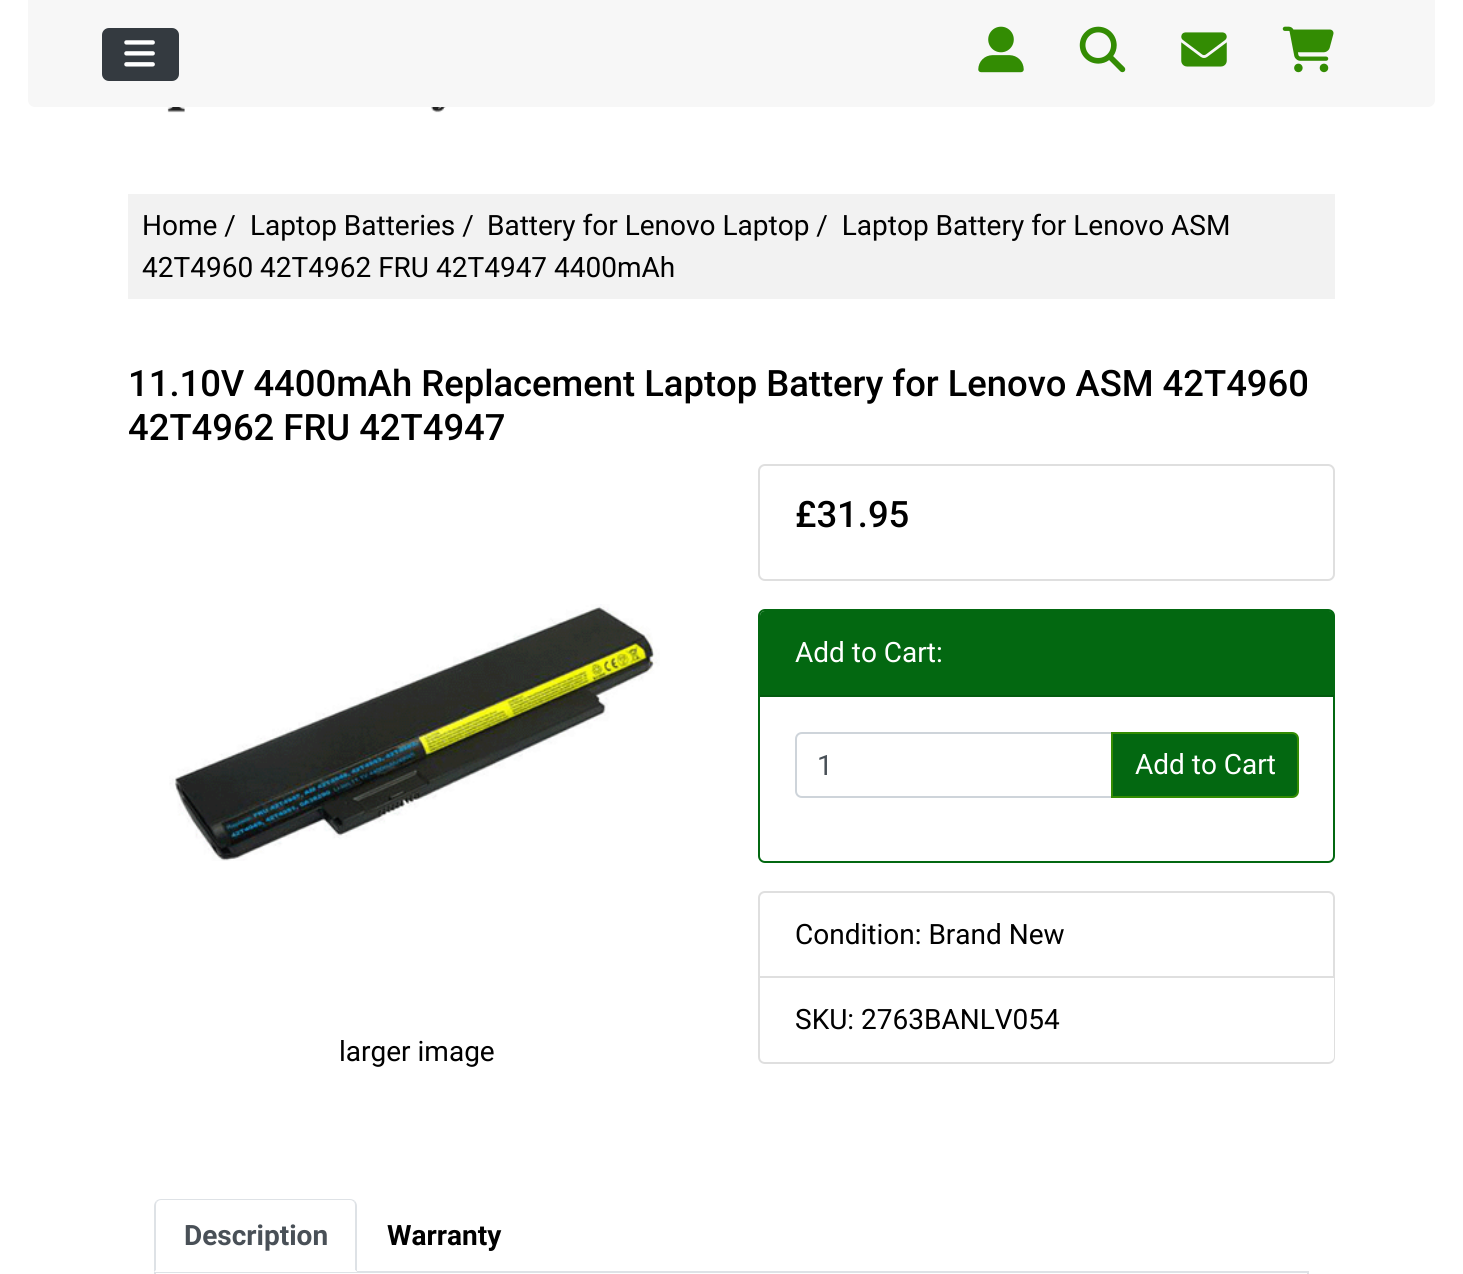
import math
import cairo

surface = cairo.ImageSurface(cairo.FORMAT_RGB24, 1463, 1274)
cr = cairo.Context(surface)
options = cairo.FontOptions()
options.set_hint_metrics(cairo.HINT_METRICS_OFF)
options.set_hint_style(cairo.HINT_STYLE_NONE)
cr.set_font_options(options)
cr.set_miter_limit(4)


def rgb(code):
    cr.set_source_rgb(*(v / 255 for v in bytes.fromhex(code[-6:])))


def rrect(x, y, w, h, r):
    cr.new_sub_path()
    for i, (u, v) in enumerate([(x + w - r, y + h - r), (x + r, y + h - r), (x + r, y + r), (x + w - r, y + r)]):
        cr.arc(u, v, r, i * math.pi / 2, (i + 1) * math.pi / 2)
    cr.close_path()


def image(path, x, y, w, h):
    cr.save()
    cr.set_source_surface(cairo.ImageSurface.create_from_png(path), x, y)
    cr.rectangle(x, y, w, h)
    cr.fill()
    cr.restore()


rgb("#ffffff")
cr.paint()
rgb("#f7f7f7")
cr.new_path()
cr.move_to(28, 0)
cr.line_to(1435, 0)
cr.line_to(1435, 100)
cr.curve_to(1435, 104, 1432, 107, 1428, 107)
cr.line_to(35, 107)
cr.curve_to(31, 107, 28, 104, 28, 100)
cr.close_path()
cr.fill()
rgb("#343a40")
rrect(103, 29, 75, 51, 6)
cr.fill_preserve()
cr.stroke()
image("img/1.png", 124, 40, 31, 27)
image("img/2.png", 978, 26, 46, 47)
image("img/3.png", 1079, 26, 47, 47)
image("img/4.png", 1181, 32, 46, 35)
image("img/5.png", 1282, 26, 52, 47)
image("img/6.png", 167, 107, 292, 6)
rgb("#f2f2f2")
cr.rectangle(128, 194, 1207, 105)
cr.fill()
rrect(759, 465, 575, 115, 6)
rgb("#dfdfdf")
cr.stroke()
rrect(759, 610, 575, 252, 6)
rgb("#036811")
cr.stroke()
cr.new_path()
cr.move_to(765, 611)
cr.line_to(1329, 611)
cr.curve_to(1332, 611, 1334, 613, 1334, 616)
cr.line_to(1334, 697)
cr.line_to(760, 697)
cr.line_to(760, 616)
cr.curve_to(760, 613, 762, 611, 765, 611)
cr.close_path()
cr.fill()
rgb("#035b0f")
cr.rectangle(760, 695, 574, 2)
cr.fill()
cr.new_path()
cr.move_to(802, 733)
cr.line_to(1112, 733)
cr.line_to(1112, 797)
cr.line_to(802, 797)
cr.curve_to(798.5, 797, 796, 794.5, 796, 791)
cr.line_to(796, 739)
cr.curve_to(796, 735.5, 798.5, 733, 802, 733)
cr.close_path()
rgb("#ced4da")
cr.stroke()
rgb("#036811")
cr.new_path()
cr.move_to(1112, 733)
cr.line_to(1292, 733)
cr.curve_to(1295.5, 733, 1298, 735.5, 1298, 739)
cr.line_to(1298, 791)
cr.curve_to(1298, 794.5, 1295.5, 797, 1292, 797)
cr.line_to(1112, 797)
cr.close_path()
cr.fill_preserve()
rgb("#338c03")
cr.stroke()
cr.new_path()
cr.move_to(765, 892)
cr.line_to(1328, 892)
cr.curve_to(1331.5, 892, 1334, 894.5, 1334, 898)
cr.line_to(1334, 977)
cr.line_to(759, 977)
cr.line_to(759, 898)
cr.curve_to(759, 894.5, 761.5, 892, 765, 892)
cr.close_path()
rgb("#dfdfdf")
cr.stroke()
cr.set_fill_rule(cairo.FILL_RULE_EVEN_ODD)
cr.new_path()
cr.move_to(758, 978)
cr.line_to(1335, 978)
cr.line_to(1335, 1057)
cr.curve_to(1335, 1061, 1332, 1064, 1328, 1064)
cr.line_to(765, 1064)
cr.curve_to(761, 1064, 758, 1061, 758, 1057)
cr.close_path()
cr.move_to(760, 978)
cr.line_to(1334, 978)
cr.line_to(1334, 1057)
cr.curve_to(1334, 1060, 1331, 1062, 1328, 1062)
cr.line_to(765, 1062)
cr.curve_to(762, 1062, 760, 1060, 760, 1057)
cr.close_path()
cr.fill()
image("img/7.png", 169, 604, 491, 257)
rgb("#dee2e6")
cr.rectangle(154, 1271, 1155, 2)
cr.fill()
rgb("#ffffff")
cr.new_path()
cr.move_to(161, 1199)
cr.line_to(350, 1199)
cr.curve_to(354, 1199, 357, 1202, 357, 1206)
cr.line_to(357, 1272)
cr.line_to(154, 1272)
cr.line_to(154, 1206)
cr.curve_to(154, 1202, 157, 1199, 161, 1199)
cr.close_path()
cr.fill()
rgb("#dee2e6")
cr.set_fill_rule(cairo.FILL_RULE_WINDING)
cr.new_path()
cr.move_to(161, 1199)
cr.curve_to(159, 1199, 157, 1200, 156, 1201)
cr.line_to(157, 1202)
cr.curve_to(158, 1201, 159, 1200, 161, 1200)
cr.line_to(350, 1200)
cr.curve_to(352, 1200, 353, 1201, 354, 1202)
cr.line_to(355, 1201)
cr.curve_to(354, 1200, 352, 1199, 350, 1199)
cr.close_path()
cr.fill()
cr.new_path()
cr.move_to(355, 1201)
cr.curve_to(356, 1202, 357, 1204, 357, 1206)
cr.line_to(357, 1272)
cr.line_to(355, 1270)
cr.line_to(355, 1206)
cr.curve_to(355, 1205, 355, 1203, 354, 1202)
cr.close_path()
cr.fill()
rgb("#ffffff")
cr.new_path()
cr.move_to(357, 1272)
cr.line_to(154, 1272)
cr.line_to(156, 1270)
cr.line_to(355, 1270)
cr.close_path()
cr.fill()
rgb("#dee2e6")
cr.new_path()
cr.move_to(154, 1206)
cr.line_to(154, 1272)
cr.line_to(156, 1270)
cr.line_to(156, 1206)
cr.curve_to(156, 1205, 156, 1203, 157, 1202)
cr.line_to(156, 1201)
cr.curve_to(155, 1202, 154, 1204, 154, 1206)
cr.close_path()
cr.fill()
cr.rectangle(1307, 1273, 2, 1)
cr.fill()
cr.rectangle(154, 1273, 2, 1)
cr.fill()
cr.select_font_face("Roboto")
cr.set_font_size(28)
rgb("#000000")
for x, y, s in [
    (142, 235, "Home /"),
    (250, 235, "Laptop Batteries /"),
    (487, 235, "Battery for Lenovo Laptop /  Laptop Battery for Lenovo ASM"),
    (142, 277, "42T4960 42T4962 FRU 42T4947 4400mAh"),
]:
    cr.move_to(x, y)
    cr.show_text(s)
cr.select_font_face("Roboto Medium")
cr.set_font_size(36.4)
for x, y, s in [
    (128, 396, "11.10V 4400mAh Replacement Laptop Battery for Lenovo ASM 42T4960"),
    (128, 440, "42T4962 FRU 42T4947"),
    (795, 527, "£31.95"),
]:
    cr.move_to(x, y)
    cr.show_text(s)
cr.select_font_face("Roboto")
cr.set_font_size(28)
rgb("#ffffff")
cr.move_to(795, 662)
cr.show_text("Add to Cart:")
rgb("#495057")
cr.move_to(817, 775)
cr.show_text("1")
rgb("#ffffff")
cr.move_to(1135, 774)
cr.show_text("Add to Cart")
rgb("#000000")
for x, y, s in [
    (795, 944, "Condition: Brand New"),
    (795, 1029, "SKU: 2763BANLV054"),
    (339, 1061, "larger image"),
]:
    cr.move_to(x, y)
    cr.show_text(s)
cr.select_font_face("Roboto", cairo.FONT_SLANT_NORMAL, cairo.FONT_WEIGHT_BOLD)
rgb("#495057")
cr.move_to(184, 1245)
cr.show_text("Description")
rgb("#000000")
cr.move_to(387, 1245)
cr.show_text("Warranty")
surface.write_to_png("page.png")
